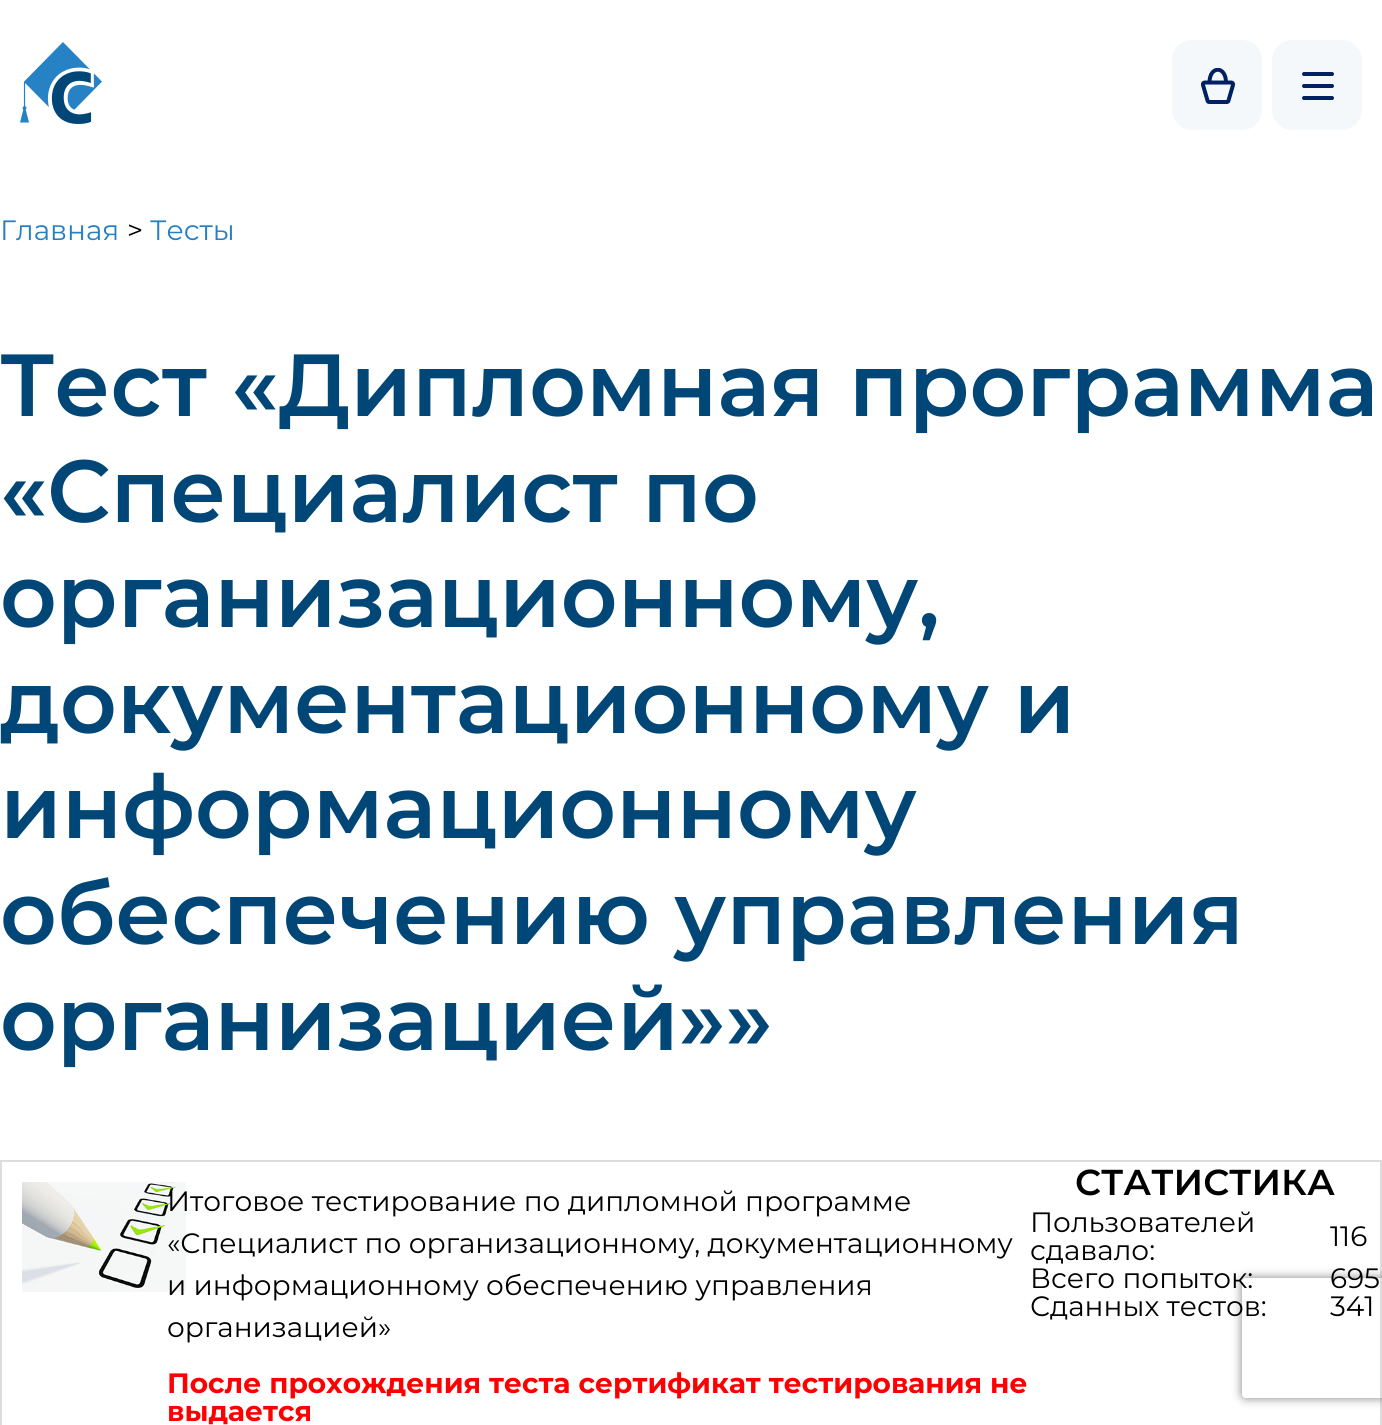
import math
import cairo

surface = cairo.ImageSurface(cairo.FORMAT_RGB24, 1382, 1425)
cr = cairo.Context(surface)
options = cairo.FontOptions()
options.set_hint_metrics(cairo.HINT_METRICS_OFF)
options.set_hint_style(cairo.HINT_STYLE_NONE)
cr.set_font_options(options)
cr.set_miter_limit(4)


def rgb(code):
    cr.set_source_rgb(*(v / 255 for v in bytes.fromhex(code[-6:])))


def rrect(x, y, w, h, r):
    cr.new_sub_path()
    for i, (u, v) in enumerate([(x + w - r, y + h - r), (x + r, y + h - r), (x + r, y + r), (x + w - r, y + r)]):
        cr.arc(u, v, r, i * math.pi / 2, (i + 1) * math.pi / 2)
    cr.close_path()


def soft_shadow(x, y, w, h, r, blur, alpha):
    cr.push_group_with_content(cairo.CONTENT_ALPHA)
    cr.set_operator(cairo.OPERATOR_SOURCE)
    for i in range(15, -16, -2):
        e = blur * i / 6
        if min(w, h) + 2 * e > 0:
            cr.set_source_rgba(0, 0, 0, alpha * math.erfc((i - 1) / 8.5) / 2)
            rrect(x - e, y - e, w + 2 * e, h + 2 * e, max(0, min(r + e + blur * .6, min(w, h) / 2 + e)))
            cr.fill()
    cr.mask(cr.pop_group())


def image(path, x, y, w, h):
    cr.save()
    cr.set_source_surface(cairo.ImageSurface.create_from_png(path), x, y)
    cr.rectangle(x, y, w, h)
    cr.fill()
    cr.restore()


rgb("#ffffff")
cr.paint()
image("img/1.png", 20, 42, 82, 82)
rgb("#f5f8fb")
rrect(1172, 40, 90, 90, 20)
cr.fill()
cr.save()
cr.rectangle(1200, 68, 36, 36)
cr.clip()
cr.new_path()
cr.move_to(1209.5, 82.5)
cr.curve_to(1209.5, 65.5, 1226, 65.5, 1226, 82.5)
cr.move_to(1226, 82.5)
cr.line_to(1231.5, 82.5)
cr.curve_to(1232.5, 82.5, 1233.5, 84, 1233, 85)
cr.line_to(1228.5, 100.5)
cr.curve_to(1228.5, 101.5, 1227.5, 102, 1227, 102)
cr.line_to(1209, 102)
cr.curve_to(1208.5, 102, 1207.5, 101.5, 1207.5, 100.5)
cr.line_to(1203, 85)
cr.curve_to(1202.5, 84, 1203.5, 82.5, 1204.5, 82.5)
cr.close_path()
rgb("#012063")
cr.set_line_width(4)
cr.stroke()
cr.restore()
rrect(1272, 40, 90, 90, 20)
cr.fill()
cr.new_path()
cr.move_to(1304, 74)
cr.line_to(1332, 74)
cr.move_to(1304, 86)
cr.line_to(1332, 86)
cr.move_to(1304, 98)
cr.line_to(1332, 98)
rgb("#012063")
cr.set_line_width(4)
cr.set_line_cap(cairo.LINE_CAP_ROUND)
cr.stroke()
cr.rectangle(1, 1161, 1380, 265)
rgb("#dcdcdc")
cr.set_line_width(2)
cr.set_line_cap(cairo.LINE_CAP_BUTT)
cr.stroke()
image("img/2.png", 22, 1182, 164, 110)
cr.save()
cr.set_fill_rule(cairo.FILL_RULE_EVEN_ODD)
cr.new_path()
cr.move_to(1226, 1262)
cr.line_to(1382, 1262)
cr.line_to(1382, 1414)
cr.line_to(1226, 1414)
cr.close_path()
cr.move_to(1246, 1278)
cr.line_to(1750, 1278)
cr.curve_to(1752, 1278, 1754, 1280, 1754, 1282)
cr.line_to(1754, 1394)
cr.curve_to(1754, 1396, 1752, 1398, 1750, 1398)
cr.line_to(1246, 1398)
cr.curve_to(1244, 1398, 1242, 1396, 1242, 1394)
cr.line_to(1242, 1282)
cr.curve_to(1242, 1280, 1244, 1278, 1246, 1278)
cr.close_path()
cr.clip()
rgb("#808080")
soft_shadow(1242, 1278, 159, 120, 4, 5, 1)
cr.restore()
cr.select_font_face("Montserrat")
cr.set_font_size(28)
rgb("#2580c3")
cr.move_to(0, 240)
cr.show_text("Главная")
rgb("#000000")
cr.move_to(127, 240)
cr.show_text(">")
rgb("#2580c3")
cr.move_to(150, 240)
cr.show_text("Тесты")
cr.select_font_face("Montserrat SemiBold")
cr.set_font_size(88)
rgb("#004677")
for x, y, s in [
    (0, 416, "Тест «Дипломная программа"),
    (0, 522, "«Специалист по"),
    (0, 627, "организационному,"),
    (0, 733, "документационному и"),
    (0, 838, "информационному"),
    (0, 944, "обеспечению управления"),
    (0, 1050, "организацией»»"),
]:
    cr.move_to(x, y)
    cr.show_text(s)
cr.select_font_face("Montserrat")
cr.set_font_size(28)
rgb("#000000")
for x, y, s in [
    (167, 1211, "Итоговое тестирование по дипломной программе"),
    (167, 1253, "«Специалист по организационному, документационному"),
    (167, 1295, "и информационному обеспечению управления"),
    (167, 1337, "организацией»"),
]:
    cr.move_to(x, y)
    cr.show_text(s)
cr.select_font_face("Montserrat", cairo.FONT_SLANT_NORMAL, cairo.FONT_WEIGHT_BOLD)
rgb("#ff0000")
cr.move_to(167, 1393)
cr.show_text("После прохождения теста сертификат тестирования не")
cr.move_to(167, 1421)
cr.show_text("выдается")
cr.select_font_face("Montserrat SemiBold")
cr.set_font_size(36)
rgb("#000000")
cr.move_to(1075, 1195)
cr.show_text("СТАТИСТИКА")
cr.select_font_face("Montserrat")
cr.set_font_size(28)
for x, y, s in [
    (1030, 1232, "Пользователей"),
    (1030, 1260, "сдавало:"),
    (1330, 1246, "116"),
    (1030, 1288, "Всего попыток:"),
    (1330, 1288, "695"),
    (1030, 1316, "Сданных тестов:"),
    (1330, 1316, "341"),
]:
    cr.move_to(x, y)
    cr.show_text(s)
surface.write_to_png("page.png")
